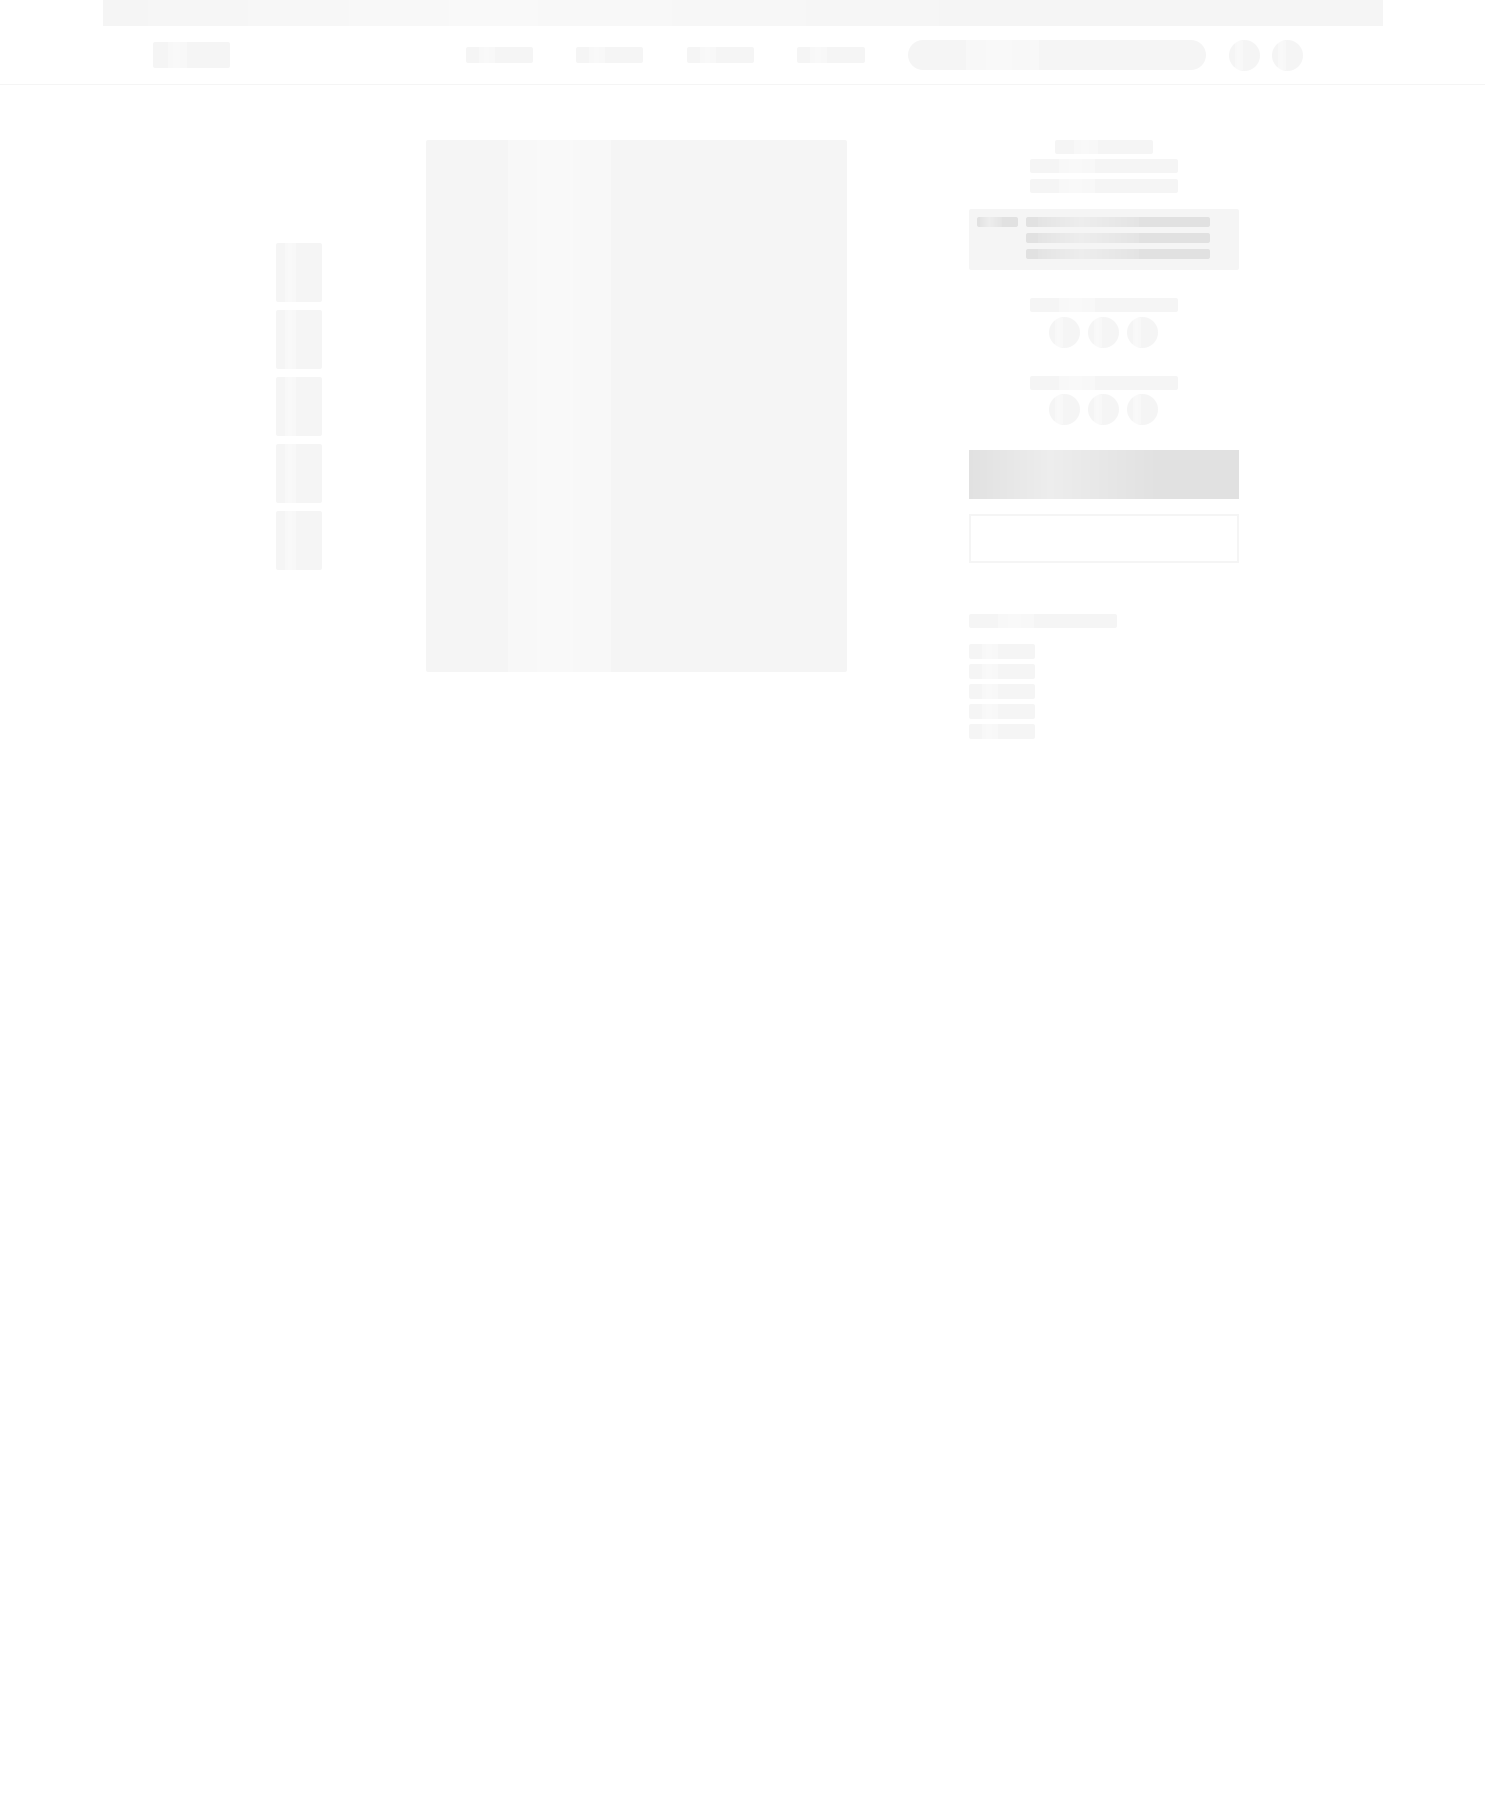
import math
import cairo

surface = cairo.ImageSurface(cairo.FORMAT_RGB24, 1485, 1811)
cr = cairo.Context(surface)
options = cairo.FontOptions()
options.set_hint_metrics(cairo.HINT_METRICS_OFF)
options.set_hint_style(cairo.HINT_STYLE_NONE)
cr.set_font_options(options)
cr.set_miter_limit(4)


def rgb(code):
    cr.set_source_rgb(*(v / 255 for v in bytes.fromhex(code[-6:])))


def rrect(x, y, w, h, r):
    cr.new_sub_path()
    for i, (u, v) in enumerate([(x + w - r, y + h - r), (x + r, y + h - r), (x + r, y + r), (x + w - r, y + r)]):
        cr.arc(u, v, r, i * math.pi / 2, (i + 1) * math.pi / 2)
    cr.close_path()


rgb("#ffffff")
cr.paint()
rgb("#f5f5f5")
cr.rectangle(0, 84, 1485, 1)
cr.fill()
gradient = cairo.LinearGradient(103, 13, 1383, 13)
gradient.add_color_stop_rgba(0, 0.961, 0.961, 0.961, 1)
gradient.add_color_stop_rgba(0.3, 0.976, 0.976, 0.976, 1)
gradient.add_color_stop_rgba(0.7, 0.961, 0.961, 0.961, 1)
cr.set_source(gradient)
cr.rectangle(103, 0, 1280, 26)
cr.fill()
rgb("#f5f5f5")
rrect(153, 42, 77, 26, 2)
cr.fill()
gradient = cairo.LinearGradient(153, 55, 230, 55)
gradient.add_color_stop_rgba(0, 1, 1, 1, 0)
gradient.add_color_stop_rgba(0.3, 1, 1, 1, 0.4)
gradient.add_color_stop_rgba(0.7, 1, 1, 1, 0)
cr.set_source(gradient)
cr.rectangle(168, 42, 19, 26)
cr.fill()
rgb("#f5f5f5")
rrect(466, 47, 67, 16, 2)
cr.fill()
gradient = cairo.LinearGradient(466, 55, 533, 55)
gradient.add_color_stop_rgba(0, 1, 1, 1, 0)
gradient.add_color_stop_rgba(0.3, 1, 1, 1, 0.4)
gradient.add_color_stop_rgba(0.7, 1, 1, 1, 0)
cr.set_source(gradient)
cr.rectangle(479, 47, 16, 16)
cr.fill()
rgb("#f5f5f5")
rrect(576, 47, 67, 16, 2)
cr.fill()
gradient = cairo.LinearGradient(576, 55, 643, 55)
gradient.add_color_stop_rgba(0, 1, 1, 1, 0)
gradient.add_color_stop_rgba(0.3, 1, 1, 1, 0.4)
gradient.add_color_stop_rgba(0.7, 1, 1, 1, 0)
cr.set_source(gradient)
cr.rectangle(589, 47, 16, 16)
cr.fill()
rgb("#f5f5f5")
rrect(687, 47, 67, 16, 2)
cr.fill()
gradient = cairo.LinearGradient(687, 55, 754, 55)
gradient.add_color_stop_rgba(0, 1, 1, 1, 0)
gradient.add_color_stop_rgba(0.3, 1, 1, 1, 0.4)
gradient.add_color_stop_rgba(0.7, 1, 1, 1, 0)
cr.set_source(gradient)
cr.rectangle(700, 47, 16, 16)
cr.fill()
rgb("#f5f5f5")
rrect(797, 47, 68, 16, 2)
cr.fill()
gradient = cairo.LinearGradient(797, 55, 865, 55)
gradient.add_color_stop_rgba(0, 1, 1, 1, 0)
gradient.add_color_stop_rgba(0.3, 1, 1, 1, 0.4)
gradient.add_color_stop_rgba(0.7, 1, 1, 1, 0)
cr.set_source(gradient)
cr.rectangle(810, 47, 17, 16)
cr.fill()
rgb("#f5f5f5")
rrect(908, 40, 298, 30, 15)
cr.fill()
gradient = cairo.LinearGradient(908, 55, 1206, 55)
gradient.add_color_stop_rgba(0, 1, 1, 1, 0)
gradient.add_color_stop_rgba(0.3, 1, 1, 1, 0.4)
gradient.add_color_stop_rgba(0.7, 1, 1, 1, 0)
cr.set_source(gradient)
cr.rectangle(966, 40, 73, 30)
cr.fill()
rgb("#f5f5f5")
cr.arc(1244.5, 55.5, 15.5, 0, 2 * math.pi)
cr.fill()
gradient = cairo.LinearGradient(1229, 56, 1260, 56)
gradient.add_color_stop_rgba(0, 1, 1, 1, 0)
gradient.add_color_stop_rgba(0.3, 1, 1, 1, 0.4)
gradient.add_color_stop_rgba(0.7, 1, 1, 1, 0)
cr.set_source(gradient)
cr.rectangle(1235, 41, 8, 29)
cr.fill()
rgb("#f5f5f5")
cr.arc(1287.5, 55.5, 15.5, 0, 2 * math.pi)
cr.fill()
gradient = cairo.LinearGradient(1272, 56, 1303, 56)
gradient.add_color_stop_rgba(0, 1, 1, 1, 0)
gradient.add_color_stop_rgba(0.3, 1, 1, 1, 0.4)
gradient.add_color_stop_rgba(0.7, 1, 1, 1, 0)
cr.set_source(gradient)
cr.rectangle(1278, 41, 8, 29)
cr.fill()
rgb("#f5f5f5")
rrect(276, 243, 46, 59, 2)
cr.fill()
gradient = cairo.LinearGradient(276, 273, 322, 273)
gradient.add_color_stop_rgba(0, 1, 1, 1, 0)
gradient.add_color_stop_rgba(0.3, 1, 1, 1, 0.4)
gradient.add_color_stop_rgba(0.7, 1, 1, 1, 0)
cr.set_source(gradient)
cr.rectangle(285, 243, 11, 59)
cr.fill()
rgb("#f5f5f5")
rrect(276, 310, 46, 59, 2)
cr.fill()
gradient = cairo.LinearGradient(276, 340, 322, 340)
gradient.add_color_stop_rgba(0, 1, 1, 1, 0)
gradient.add_color_stop_rgba(0.3, 1, 1, 1, 0.4)
gradient.add_color_stop_rgba(0.7, 1, 1, 1, 0)
cr.set_source(gradient)
cr.rectangle(285, 310, 11, 59)
cr.fill()
rgb("#f5f5f5")
rrect(276, 377, 46, 59, 2)
cr.fill()
gradient = cairo.LinearGradient(276, 407, 322, 407)
gradient.add_color_stop_rgba(0, 1, 1, 1, 0)
gradient.add_color_stop_rgba(0.3, 1, 1, 1, 0.4)
gradient.add_color_stop_rgba(0.7, 1, 1, 1, 0)
cr.set_source(gradient)
cr.rectangle(285, 377, 11, 59)
cr.fill()
rgb("#f5f5f5")
rrect(276, 444, 46, 59, 2)
cr.fill()
gradient = cairo.LinearGradient(276, 474, 322, 474)
gradient.add_color_stop_rgba(0, 1, 1, 1, 0)
gradient.add_color_stop_rgba(0.3, 1, 1, 1, 0.4)
gradient.add_color_stop_rgba(0.7, 1, 1, 1, 0)
cr.set_source(gradient)
cr.rectangle(285, 444, 11, 59)
cr.fill()
rgb("#f5f5f5")
rrect(276, 511, 46, 59, 2)
cr.fill()
gradient = cairo.LinearGradient(276, 541, 322, 541)
gradient.add_color_stop_rgba(0, 1, 1, 1, 0)
gradient.add_color_stop_rgba(0.3, 1, 1, 1, 0.4)
gradient.add_color_stop_rgba(0.7, 1, 1, 1, 0)
cr.set_source(gradient)
cr.rectangle(285, 511, 11, 59)
cr.fill()
rgb("#f5f5f5")
rrect(426, 140, 421, 532, 2)
cr.fill()
gradient = cairo.LinearGradient(426, 406, 847, 406)
gradient.add_color_stop_rgba(0, 1, 1, 1, 0)
gradient.add_color_stop_rgba(0.3, 1, 1, 1, 0.4)
gradient.add_color_stop_rgba(0.7, 1, 1, 1, 0)
cr.set_source(gradient)
cr.rectangle(508, 140, 103, 532)
cr.fill()
rgb("#f5f5f5")
rrect(1055, 140, 98, 14, 2)
cr.fill()
gradient = cairo.LinearGradient(1055, 147, 1153, 147)
gradient.add_color_stop_rgba(0, 1, 1, 1, 0)
gradient.add_color_stop_rgba(0.3, 1, 1, 1, 0.4)
gradient.add_color_stop_rgba(0.7, 1, 1, 1, 0)
cr.set_source(gradient)
cr.rectangle(1074, 140, 24, 14)
cr.fill()
rgb("#f5f5f5")
rrect(1030, 159, 148, 14, 2)
cr.fill()
gradient = cairo.LinearGradient(1030, 166, 1178, 166)
gradient.add_color_stop_rgba(0, 1, 1, 1, 0)
gradient.add_color_stop_rgba(0.3, 1, 1, 1, 0.4)
gradient.add_color_stop_rgba(0.7, 1, 1, 1, 0)
cr.set_source(gradient)
cr.rectangle(1059, 159, 36, 14)
cr.fill()
rgb("#f5f5f5")
rrect(1030, 179, 148, 14, 2)
cr.fill()
gradient = cairo.LinearGradient(1030, 186, 1178, 186)
gradient.add_color_stop_rgba(0, 1, 1, 1, 0)
gradient.add_color_stop_rgba(0.3, 1, 1, 1, 0.4)
gradient.add_color_stop_rgba(0.7, 1, 1, 1, 0)
cr.set_source(gradient)
cr.rectangle(1059, 179, 36, 14)
cr.fill()
rgb("#f5f5f5")
rrect(969, 209, 270, 61, 2)
cr.fill()
rgb("#e1e1e1")
rrect(977, 217, 41, 10, 2)
cr.fill()
gradient = cairo.LinearGradient(977, 222, 1018, 222)
gradient.add_color_stop_rgba(0, 1, 1, 1, 0)
gradient.add_color_stop_rgba(0.3, 1, 1, 1, 0.4)
gradient.add_color_stop_rgba(0.7, 1, 1, 1, 0)
cr.set_source(gradient)
cr.rectangle(980, 217, 22, 10)
cr.fill()
rgb("#e1e1e1")
rrect(1026, 217, 184, 10, 2)
cr.fill()
gradient = cairo.LinearGradient(1026, 222, 1210, 222)
gradient.add_color_stop_rgba(0, 1, 1, 1, 0)
gradient.add_color_stop_rgba(0.3, 1, 1, 1, 0.4)
gradient.add_color_stop_rgba(0.7, 1, 1, 1, 0)
cr.set_source(gradient)
cr.rectangle(1038, 217, 101, 10)
cr.fill()
rgb("#e1e1e1")
rrect(1026, 233, 184, 10, 2)
cr.fill()
gradient = cairo.LinearGradient(1026, 238, 1210, 238)
gradient.add_color_stop_rgba(0, 1, 1, 1, 0)
gradient.add_color_stop_rgba(0.3, 1, 1, 1, 0.4)
gradient.add_color_stop_rgba(0.7, 1, 1, 1, 0)
cr.set_source(gradient)
cr.rectangle(1038, 233, 101, 10)
cr.fill()
rgb("#e1e1e1")
rrect(1026, 249, 184, 10, 2)
cr.fill()
gradient = cairo.LinearGradient(1026, 254, 1210, 254)
gradient.add_color_stop_rgba(0, 1, 1, 1, 0)
gradient.add_color_stop_rgba(0.3, 1, 1, 1, 0.4)
gradient.add_color_stop_rgba(0.7, 1, 1, 1, 0)
cr.set_source(gradient)
cr.rectangle(1038, 249, 101, 10)
cr.fill()
rgb("#f5f5f5")
rrect(1030, 298, 148, 14, 2)
cr.fill()
gradient = cairo.LinearGradient(1030, 305, 1178, 305)
gradient.add_color_stop_rgba(0, 1, 1, 1, 0)
gradient.add_color_stop_rgba(0.3, 1, 1, 1, 0.4)
gradient.add_color_stop_rgba(0.7, 1, 1, 1, 0)
cr.set_source(gradient)
cr.rectangle(1059, 298, 36, 14)
cr.fill()
rgb("#f5f5f5")
cr.arc(1064.5, 332.5, 15.5, 0, 2 * math.pi)
cr.fill()
gradient = cairo.LinearGradient(1049, 333, 1080, 333)
gradient.add_color_stop_rgba(0, 1, 1, 1, 0)
gradient.add_color_stop_rgba(0.3, 1, 1, 1, 0.4)
gradient.add_color_stop_rgba(0.7, 1, 1, 1, 0)
cr.set_source(gradient)
cr.rectangle(1055, 318, 8, 29)
cr.fill()
rgb("#f5f5f5")
cr.arc(1103.5, 332.5, 15.5, 0, 2 * math.pi)
cr.fill()
gradient = cairo.LinearGradient(1088, 333, 1119, 333)
gradient.add_color_stop_rgba(0, 1, 1, 1, 0)
gradient.add_color_stop_rgba(0.3, 1, 1, 1, 0.4)
gradient.add_color_stop_rgba(0.7, 1, 1, 1, 0)
cr.set_source(gradient)
cr.rectangle(1094, 318, 8, 29)
cr.fill()
rgb("#f5f5f5")
cr.arc(1142.5, 332.5, 15.5, 0, 2 * math.pi)
cr.fill()
gradient = cairo.LinearGradient(1127, 333, 1158, 333)
gradient.add_color_stop_rgba(0, 1, 1, 1, 0)
gradient.add_color_stop_rgba(0.3, 1, 1, 1, 0.4)
gradient.add_color_stop_rgba(0.7, 1, 1, 1, 0)
cr.set_source(gradient)
cr.rectangle(1133, 318, 8, 29)
cr.fill()
rgb("#f5f5f5")
rrect(1030, 376, 148, 14, 2)
cr.fill()
gradient = cairo.LinearGradient(1030, 383, 1178, 383)
gradient.add_color_stop_rgba(0, 1, 1, 1, 0)
gradient.add_color_stop_rgba(0.3, 1, 1, 1, 0.4)
gradient.add_color_stop_rgba(0.7, 1, 1, 1, 0)
cr.set_source(gradient)
cr.rectangle(1059, 376, 36, 14)
cr.fill()
rgb("#f5f5f5")
cr.arc(1064.5, 409.5, 15.5, 0, 2 * math.pi)
cr.fill()
gradient = cairo.LinearGradient(1049, 410, 1080, 410)
gradient.add_color_stop_rgba(0, 1, 1, 1, 0)
gradient.add_color_stop_rgba(0.3, 1, 1, 1, 0.4)
gradient.add_color_stop_rgba(0.7, 1, 1, 1, 0)
cr.set_source(gradient)
cr.rectangle(1055, 395, 8, 29)
cr.fill()
rgb("#f5f5f5")
cr.arc(1103.5, 409.5, 15.5, 0, 2 * math.pi)
cr.fill()
gradient = cairo.LinearGradient(1088, 410, 1119, 410)
gradient.add_color_stop_rgba(0, 1, 1, 1, 0)
gradient.add_color_stop_rgba(0.3, 1, 1, 1, 0.4)
gradient.add_color_stop_rgba(0.7, 1, 1, 1, 0)
cr.set_source(gradient)
cr.rectangle(1094, 395, 8, 29)
cr.fill()
rgb("#f5f5f5")
cr.arc(1142.5, 409.5, 15.5, 0, 2 * math.pi)
cr.fill()
gradient = cairo.LinearGradient(1127, 410, 1158, 410)
gradient.add_color_stop_rgba(0, 1, 1, 1, 0)
gradient.add_color_stop_rgba(0.3, 1, 1, 1, 0.4)
gradient.add_color_stop_rgba(0.7, 1, 1, 1, 0)
cr.set_source(gradient)
cr.rectangle(1133, 395, 8, 29)
cr.fill()
gradient = cairo.LinearGradient(969, 475, 1239, 475)
gradient.add_color_stop_rgba(0, 0.882, 0.882, 0.882, 1)
gradient.add_color_stop_rgba(0.3, 0.929, 0.929, 0.929, 1)
gradient.add_color_stop_rgba(0.7, 0.882, 0.882, 0.882, 1)
cr.set_source(gradient)
cr.rectangle(969, 450, 270, 49)
cr.fill()
cr.rectangle(970, 515, 268, 47)
rgb("#f5f5f5")
cr.stroke()
rrect(969, 614, 148, 14, 2)
cr.fill()
gradient = cairo.LinearGradient(969, 621, 1117, 621)
gradient.add_color_stop_rgba(0, 1, 1, 1, 0)
gradient.add_color_stop_rgba(0.3, 1, 1, 1, 0.4)
gradient.add_color_stop_rgba(0.7, 1, 1, 1, 0)
cr.set_source(gradient)
cr.rectangle(998, 614, 36, 14)
cr.fill()
rgb("#f5f5f5")
rrect(969, 644, 66, 15, 2)
cr.fill()
gradient = cairo.LinearGradient(969, 652, 1035, 652)
gradient.add_color_stop_rgba(0, 1, 1, 1, 0)
gradient.add_color_stop_rgba(0.3, 1, 1, 1, 0.4)
gradient.add_color_stop_rgba(0.7, 1, 1, 1, 0)
cr.set_source(gradient)
cr.rectangle(982, 644, 16, 15)
cr.fill()
rgb("#f5f5f5")
rrect(969, 664, 66, 15, 2)
cr.fill()
gradient = cairo.LinearGradient(969, 672, 1035, 672)
gradient.add_color_stop_rgba(0, 1, 1, 1, 0)
gradient.add_color_stop_rgba(0.3, 1, 1, 1, 0.4)
gradient.add_color_stop_rgba(0.7, 1, 1, 1, 0)
cr.set_source(gradient)
cr.rectangle(982, 664, 16, 15)
cr.fill()
rgb("#f5f5f5")
rrect(969, 684, 66, 15, 2)
cr.fill()
gradient = cairo.LinearGradient(969, 692, 1035, 692)
gradient.add_color_stop_rgba(0, 1, 1, 1, 0)
gradient.add_color_stop_rgba(0.3, 1, 1, 1, 0.4)
gradient.add_color_stop_rgba(0.7, 1, 1, 1, 0)
cr.set_source(gradient)
cr.rectangle(982, 684, 16, 15)
cr.fill()
rgb("#f5f5f5")
rrect(969, 704, 66, 15, 2)
cr.fill()
gradient = cairo.LinearGradient(969, 712, 1035, 712)
gradient.add_color_stop_rgba(0, 1, 1, 1, 0)
gradient.add_color_stop_rgba(0.3, 1, 1, 1, 0.4)
gradient.add_color_stop_rgba(0.7, 1, 1, 1, 0)
cr.set_source(gradient)
cr.rectangle(982, 704, 16, 15)
cr.fill()
rgb("#f5f5f5")
rrect(969, 724, 66, 15, 2)
cr.fill()
gradient = cairo.LinearGradient(969, 732, 1035, 732)
gradient.add_color_stop_rgba(0, 1, 1, 1, 0)
gradient.add_color_stop_rgba(0.3, 1, 1, 1, 0.4)
gradient.add_color_stop_rgba(0.7, 1, 1, 1, 0)
cr.set_source(gradient)
cr.rectangle(982, 724, 16, 15)
cr.fill()
surface.write_to_png("page.png")
